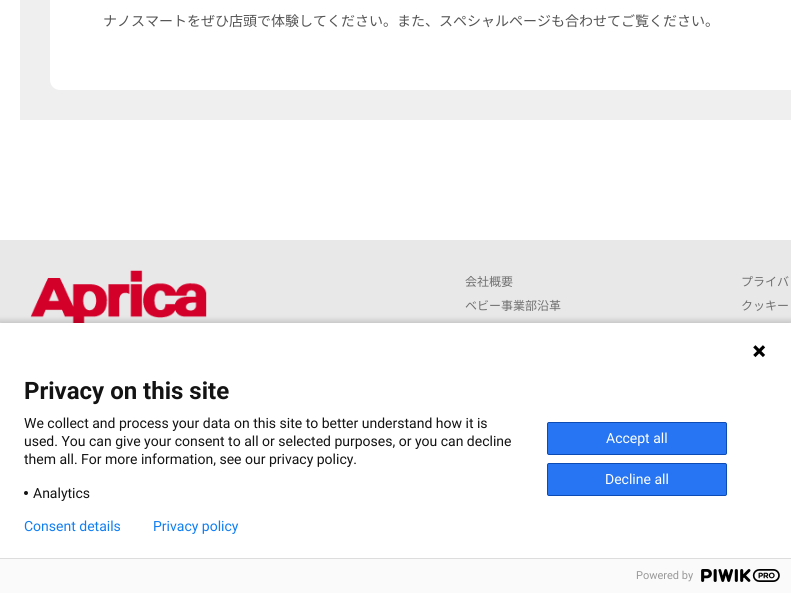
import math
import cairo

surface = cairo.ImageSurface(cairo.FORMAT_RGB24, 791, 593)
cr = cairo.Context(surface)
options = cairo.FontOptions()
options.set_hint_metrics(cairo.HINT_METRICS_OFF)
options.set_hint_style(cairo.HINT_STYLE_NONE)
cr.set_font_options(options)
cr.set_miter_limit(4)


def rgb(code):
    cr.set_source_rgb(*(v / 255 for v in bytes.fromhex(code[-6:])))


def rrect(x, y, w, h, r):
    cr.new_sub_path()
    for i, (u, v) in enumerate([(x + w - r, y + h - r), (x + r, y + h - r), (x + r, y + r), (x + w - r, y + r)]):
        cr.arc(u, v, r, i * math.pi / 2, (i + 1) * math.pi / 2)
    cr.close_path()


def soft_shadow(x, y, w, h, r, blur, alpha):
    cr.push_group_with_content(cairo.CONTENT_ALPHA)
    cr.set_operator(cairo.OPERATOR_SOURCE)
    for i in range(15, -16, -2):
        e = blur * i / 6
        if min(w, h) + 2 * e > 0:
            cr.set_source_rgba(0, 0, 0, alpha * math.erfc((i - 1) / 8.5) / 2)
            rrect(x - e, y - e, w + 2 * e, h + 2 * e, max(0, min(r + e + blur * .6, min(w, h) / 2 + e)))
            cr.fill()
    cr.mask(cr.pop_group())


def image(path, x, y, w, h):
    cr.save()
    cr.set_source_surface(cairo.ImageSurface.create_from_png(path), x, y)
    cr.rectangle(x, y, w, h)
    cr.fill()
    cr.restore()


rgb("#ffffff")
cr.paint()
rgb("#efefef")
cr.rectangle(20, 0, 771, 120)
cr.fill()
rgb("#ffffff")
rrect(50, -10, 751, 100, 10)
cr.fill()
rgb("#e8e8e8")
cr.rectangle(0, 240, 791, 83)
cr.fill()
image("img/1.png", 30, 270, 177, 53)
rgb("#000000")
soft_shadow(-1, 320, 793, 272, 0, 2.5, 0.14)
rgb("#ffffff")
cr.rectangle(0, 323, 791, 235)
cr.fill()
image("img/2.png", 753, 345, 13, 13)
rgb("#131313")
cr.arc(26, 493, 2, 0, 2 * math.pi)
cr.fill()
rgb("#2775f2")
rrect(547.5, 422.5, 179, 32, 1.5)
cr.fill_preserve()
rgb("#0b4bb3")
cr.set_line_width(1)
cr.stroke()
rgb("#2775f2")
rrect(547.5, 463.5, 179, 32, 1.5)
cr.fill_preserve()
rgb("#0b4bb3")
cr.stroke()
rgb("#fafafa")
cr.rectangle(0, 559, 791, 34)
cr.fill()
rgb("#dddddd")
cr.rectangle(0, 558, 791, 1)
cr.fill()
image("img/3.png", 701, 569, 79, 13)
cr.select_font_face("Noto Sans JP")
cr.set_font_size(14)
rgb("#555555")
cr.move_to(103, 26)
cr.show_text("ナノスマートをぜひ店頭で体験してください。また、スペシャルページも合わせてご覧ください。")
cr.set_font_size(12)
rgb("#707070")
for x, y, s in [
    (465, 286, "会社概要"),
    (465, 310, "ベビー事業部沿革"),
    (741, 286, "プライバ"),
    (741, 310, "クッキー"),
]:
    cr.move_to(x, y)
    cr.show_text(s)
cr.select_font_face("Roboto", cairo.FONT_SLANT_NORMAL, cairo.FONT_WEIGHT_BOLD)
cr.set_font_size(24)
rgb("#131313")
cr.move_to(24, 399)
cr.show_text("Privacy on this site")
cr.select_font_face("Roboto")
cr.set_font_size(14)
for x, y, s in [
    (24, 428, "We collect and process your data on this site to better understand how it is"),
    (24, 446, "used. You can give your consent to all or selected purposes, or you can decline"),
    (24, 464, "them all. For more information, see our privacy policy."),
    (33, 498, "Analytics"),
]:
    cr.move_to(x, y)
    cr.show_text(s)
rgb("#ffffff")
cr.move_to(606, 443)
cr.show_text("Accept all")
cr.move_to(605, 484)
cr.show_text("Decline all")
rgb("#107ef1")
cr.move_to(24, 531)
cr.show_text("Consent details")
cr.move_to(153, 531)
cr.show_text("Privacy policy")
cr.set_font_size(11)
rgb("#999999")
cr.move_to(636, 579)
cr.show_text("Powered by")
surface.write_to_png("page.png")
